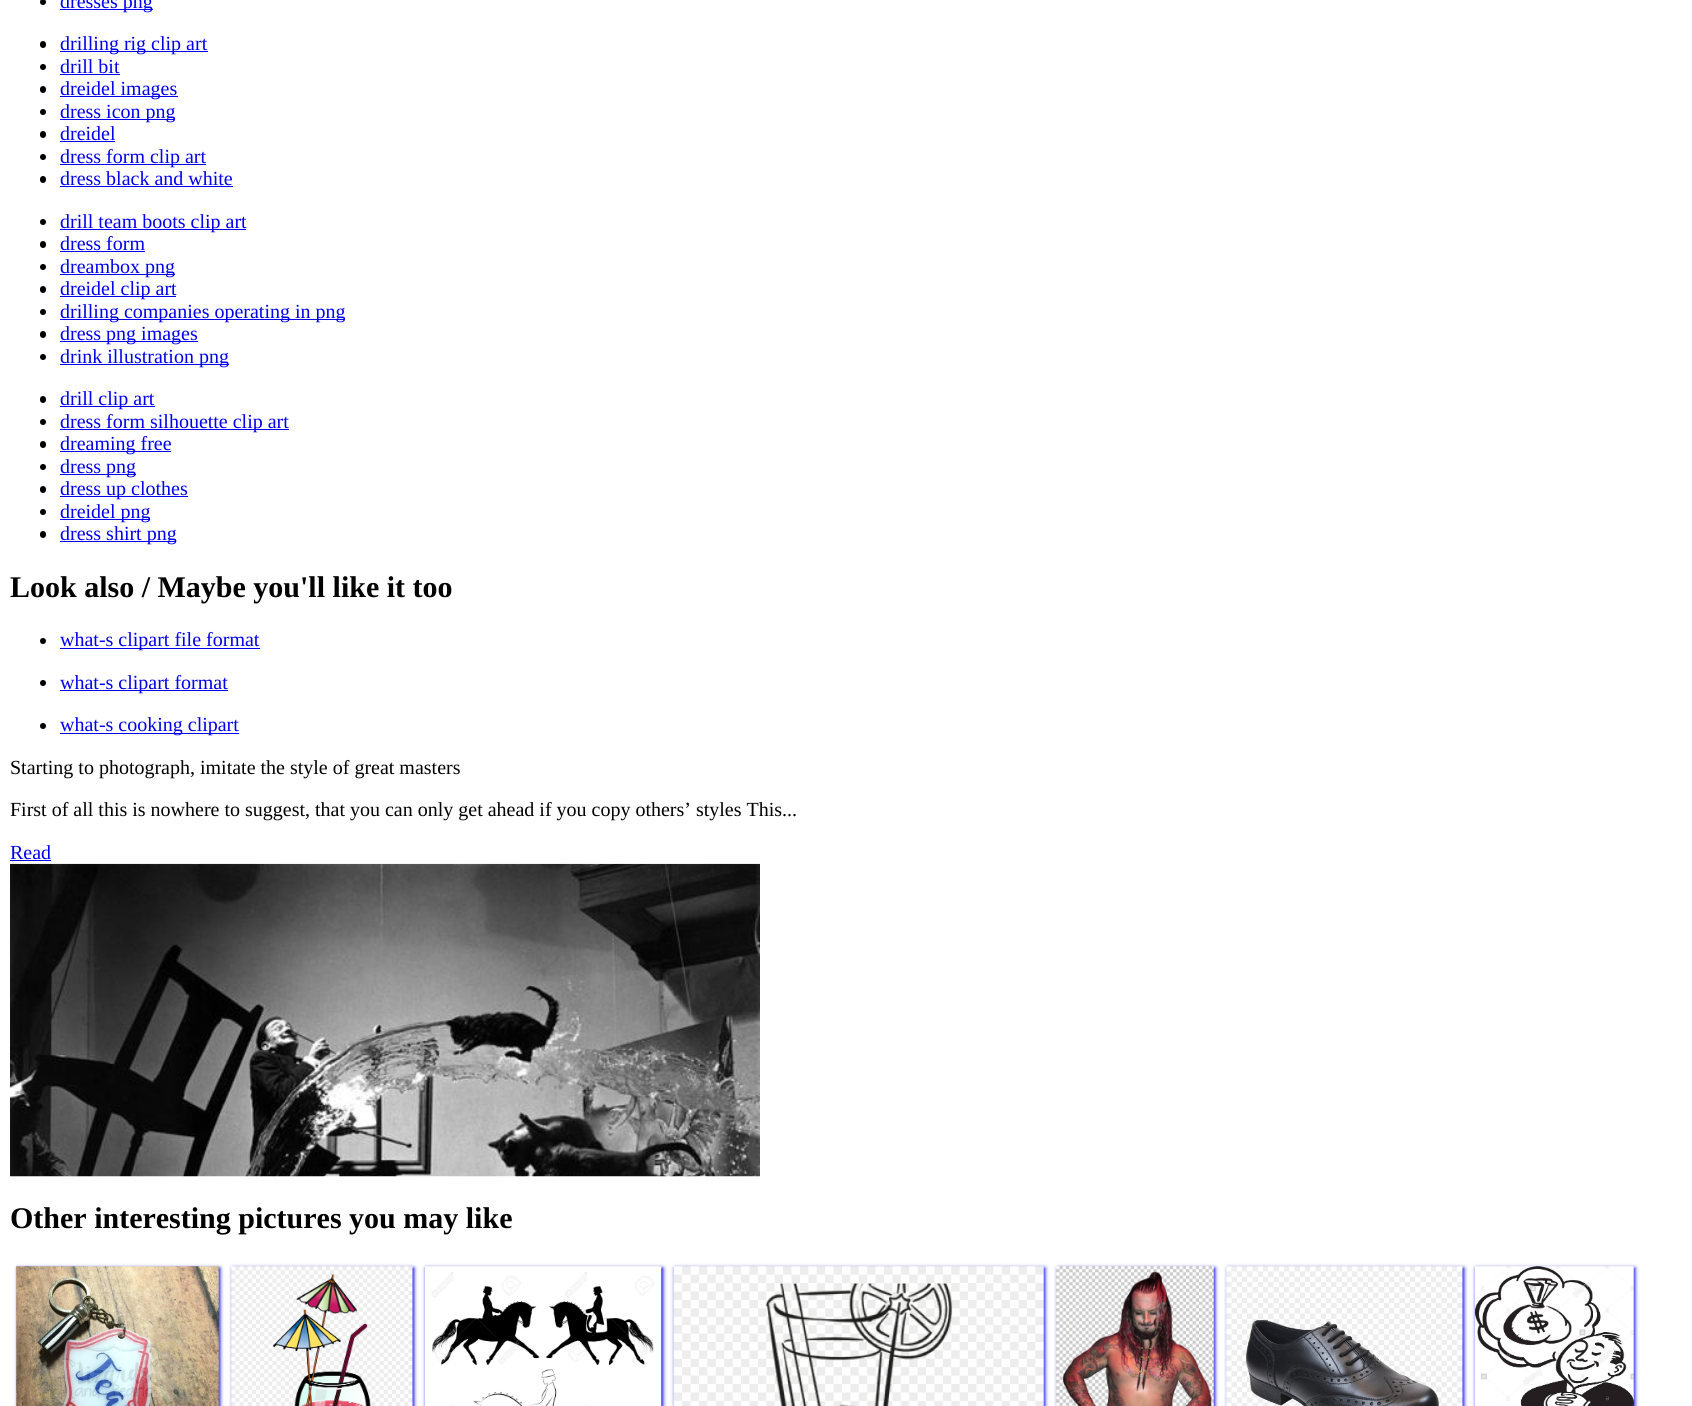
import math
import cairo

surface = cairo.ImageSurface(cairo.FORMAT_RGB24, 1692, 1406)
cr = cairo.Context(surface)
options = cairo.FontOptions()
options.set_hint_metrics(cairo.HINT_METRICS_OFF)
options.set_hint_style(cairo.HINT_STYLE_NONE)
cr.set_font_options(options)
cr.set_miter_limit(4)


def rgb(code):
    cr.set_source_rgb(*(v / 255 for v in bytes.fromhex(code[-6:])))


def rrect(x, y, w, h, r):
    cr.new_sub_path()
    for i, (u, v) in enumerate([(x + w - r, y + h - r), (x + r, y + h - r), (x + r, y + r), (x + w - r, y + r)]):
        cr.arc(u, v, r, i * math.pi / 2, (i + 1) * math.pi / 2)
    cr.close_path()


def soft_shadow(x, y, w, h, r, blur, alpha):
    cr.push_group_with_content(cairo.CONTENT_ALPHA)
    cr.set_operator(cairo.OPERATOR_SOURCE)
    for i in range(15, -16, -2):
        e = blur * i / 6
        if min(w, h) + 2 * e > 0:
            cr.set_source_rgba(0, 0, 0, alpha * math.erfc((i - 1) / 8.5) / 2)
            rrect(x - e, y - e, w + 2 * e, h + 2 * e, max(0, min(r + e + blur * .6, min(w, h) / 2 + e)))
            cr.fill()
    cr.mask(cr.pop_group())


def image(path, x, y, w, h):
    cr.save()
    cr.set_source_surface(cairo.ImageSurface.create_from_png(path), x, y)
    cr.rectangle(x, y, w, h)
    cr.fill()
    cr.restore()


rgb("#ffffff")
cr.paint()
rgb("#000000")
cr.arc(43, 2, 3, 0, 2 * math.pi)
cr.fill()
rgb("#0000ee")
cr.rectangle(60, 9, 93, 1)
cr.fill()
rgb("#000000")
rrect(40, 41, 6, 7, 3)
cr.fill()
rgb("#0000ee")
cr.rectangle(60, 51, 148, 1)
cr.fill()
rgb("#000000")
cr.arc(43, 67, 3, 0, 2 * math.pi)
cr.fill()
rgb("#0000ee")
cr.rectangle(60, 74, 60, 1)
cr.fill()
rgb("#000000")
rrect(40, 86, 6, 7, 3)
cr.fill()
rgb("#0000ee")
cr.rectangle(60, 96, 118, 1)
cr.fill()
rgb("#000000")
cr.arc(43, 112, 3, 0, 2 * math.pi)
cr.fill()
rgb("#0000ee")
cr.rectangle(60, 119, 115, 1)
cr.fill()
rgb("#000000")
rrect(40, 131, 6, 7, 3)
cr.fill()
rgb("#0000ee")
cr.rectangle(60, 141, 55, 1)
cr.fill()
rgb("#000000")
cr.arc(43, 157, 3, 0, 2 * math.pi)
cr.fill()
rgb("#0000ee")
cr.rectangle(60, 164, 146, 1)
cr.fill()
rgb("#000000")
rrect(40, 176, 6, 7, 3)
cr.fill()
rgb("#0000ee")
cr.rectangle(60, 186, 173, 1)
cr.fill()
rgb("#000000")
cr.arc(43, 222, 3, 0, 2 * math.pi)
cr.fill()
rgb("#0000ee")
cr.rectangle(60, 229, 186, 1)
cr.fill()
rgb("#000000")
rrect(40, 241, 6, 7, 3)
cr.fill()
rgb("#0000ee")
cr.rectangle(60, 251, 85, 1)
cr.fill()
rgb("#000000")
cr.arc(43, 267, 3, 0, 2 * math.pi)
cr.fill()
rgb("#0000ee")
cr.rectangle(60, 274, 115, 1)
cr.fill()
rgb("#000000")
rrect(40, 286, 6, 7, 3)
cr.fill()
rgb("#0000ee")
cr.rectangle(60, 296, 116, 1)
cr.fill()
rgb("#000000")
cr.arc(43, 312, 3, 0, 2 * math.pi)
cr.fill()
rgb("#0000ee")
cr.rectangle(60, 319, 285, 1)
cr.fill()
rgb("#000000")
rrect(40, 331, 6, 7, 3)
cr.fill()
rgb("#0000ee")
cr.rectangle(60, 341, 138, 1)
cr.fill()
rgb("#000000")
cr.arc(43, 357, 3, 0, 2 * math.pi)
cr.fill()
rgb("#0000ee")
cr.rectangle(60, 364, 169, 1)
cr.fill()
rgb("#000000")
rrect(40, 396, 6, 7, 3)
cr.fill()
rgb("#0000ee")
cr.rectangle(60, 406, 95, 1)
cr.fill()
rgb("#000000")
cr.arc(43, 422, 3, 0, 2 * math.pi)
cr.fill()
rgb("#0000ee")
cr.rectangle(60, 429, 229, 1)
cr.fill()
rgb("#000000")
rrect(40, 441, 6, 7, 3)
cr.fill()
rgb("#0000ee")
cr.rectangle(60, 451, 111, 1)
cr.fill()
rgb("#000000")
cr.arc(43, 467, 3, 0, 2 * math.pi)
cr.fill()
rgb("#0000ee")
cr.rectangle(60, 474, 76, 1)
cr.fill()
rgb("#000000")
rrect(40, 486, 6, 7, 3)
cr.fill()
rgb("#0000ee")
cr.rectangle(60, 496, 128, 1)
cr.fill()
rgb("#000000")
cr.arc(43, 512, 3, 0, 2 * math.pi)
cr.fill()
rgb("#0000ee")
cr.rectangle(60, 519, 90, 1)
cr.fill()
rgb("#000000")
rrect(40, 531, 6, 7, 3)
cr.fill()
rgb("#0000ee")
cr.rectangle(60, 541, 116, 1)
cr.fill()
rgb("#000000")
cr.arc(43, 641, 3, 0, 2 * math.pi)
cr.fill()
rgb("#0000ee")
cr.rectangle(60, 648, 200, 1)
cr.fill()
rgb("#000000")
cr.arc(43, 683, 3, 0, 2 * math.pi)
cr.fill()
rgb("#0000ee")
cr.rectangle(60, 690, 168, 1)
cr.fill()
rgb("#000000")
cr.arc(43, 726, 3, 0, 2 * math.pi)
cr.fill()
rgb("#0000ee")
cr.rectangle(60, 733, 179, 1)
cr.fill()
cr.rectangle(10, 860, 41, 1)
cr.fill()
image("img/1.png", 10, 863, 750, 314)
rgb("#0000ee")
soft_shadow(18, 1268, 202, 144, 0, 2, 1)
image("img/2.png", 16, 1266, 203, 140)
soft_shadow(233, 1268, 181, 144, 0, 2, 1)
image("img/3.png", 231, 1266, 182, 140)
soft_shadow(426, 1268, 237, 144, 0, 2, 1)
image("img/4.png", 425, 1266, 237, 140)
soft_shadow(675, 1268, 370, 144, 0, 2, 1)
image("img/5.png", 673, 1266, 371, 140)
soft_shadow(1058, 1268, 157, 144, 0, 2, 1)
image("img/6.png", 1056, 1266, 158, 140)
soft_shadow(1228, 1268, 236, 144, 0, 2, 1)
image("img/7.png", 1226, 1266, 237, 140)
soft_shadow(1476, 1268, 159, 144, 0, 2, 1)
image("img/8.png", 1475, 1266, 159, 140)
cr.select_font_face("Liberation Serif")
cr.set_font_size(20)
rgb("#0000ee")
for x, y, s in [
    (60, 8, "dresses png"),
    (60, 50, "drilling rig clip art"),
    (60, 73, "drill bit"),
    (60, 95, "dreidel images"),
    (60, 118, "dress icon png"),
    (60, 140, "dreidel"),
    (60, 163, "dress form clip art"),
    (60, 185, "dress black and white"),
    (60, 228, "drill team boots clip art"),
    (60, 250, "dress form"),
    (60, 273, "dreambox png"),
    (60, 295, "dreidel clip art"),
    (60, 318, "drilling companies operating in png"),
    (60, 340, "dress png images"),
    (60, 363, "drink illustration png"),
    (60, 405, "drill clip art"),
    (60, 428, "dress form silhouette clip art"),
    (60, 450, "dreaming free"),
    (60, 473, "dress png"),
    (60, 495, "dress up clothes"),
    (60, 518, "dreidel png"),
    (60, 540, "dress shirt png"),
]:
    cr.move_to(x, y)
    cr.show_text(s)
cr.select_font_face("Liberation Serif", cairo.FONT_SLANT_NORMAL, cairo.FONT_WEIGHT_BOLD)
cr.set_font_size(30)
rgb("#000000")
cr.move_to(10, 597)
cr.show_text("Look also / Maybe you'll like it too")
cr.select_font_face("Liberation Serif")
cr.set_font_size(20)
rgb("#0000ee")
for x, y, s in [
    (60, 646, "what-s clipart file format"),
    (60, 689, "what-s clipart format"),
    (60, 731, "what-s cooking clipart"),
]:
    cr.move_to(x, y)
    cr.show_text(s)
rgb("#000000")
cr.move_to(10, 774)
cr.show_text("Starting to photograph, imitate the style of great masters")
cr.move_to(10, 816)
cr.show_text("First of all this is nowhere to suggest, that you can only get ahead if you copy others’ styles This...")
rgb("#0000ee")
cr.move_to(10, 859)
cr.show_text("Read")
cr.select_font_face("Liberation Serif", cairo.FONT_SLANT_NORMAL, cairo.FONT_WEIGHT_BOLD)
cr.set_font_size(30)
rgb("#000000")
cr.move_to(10, 1228)
cr.show_text("Other interesting pictures you may like")
surface.write_to_png("page.png")
